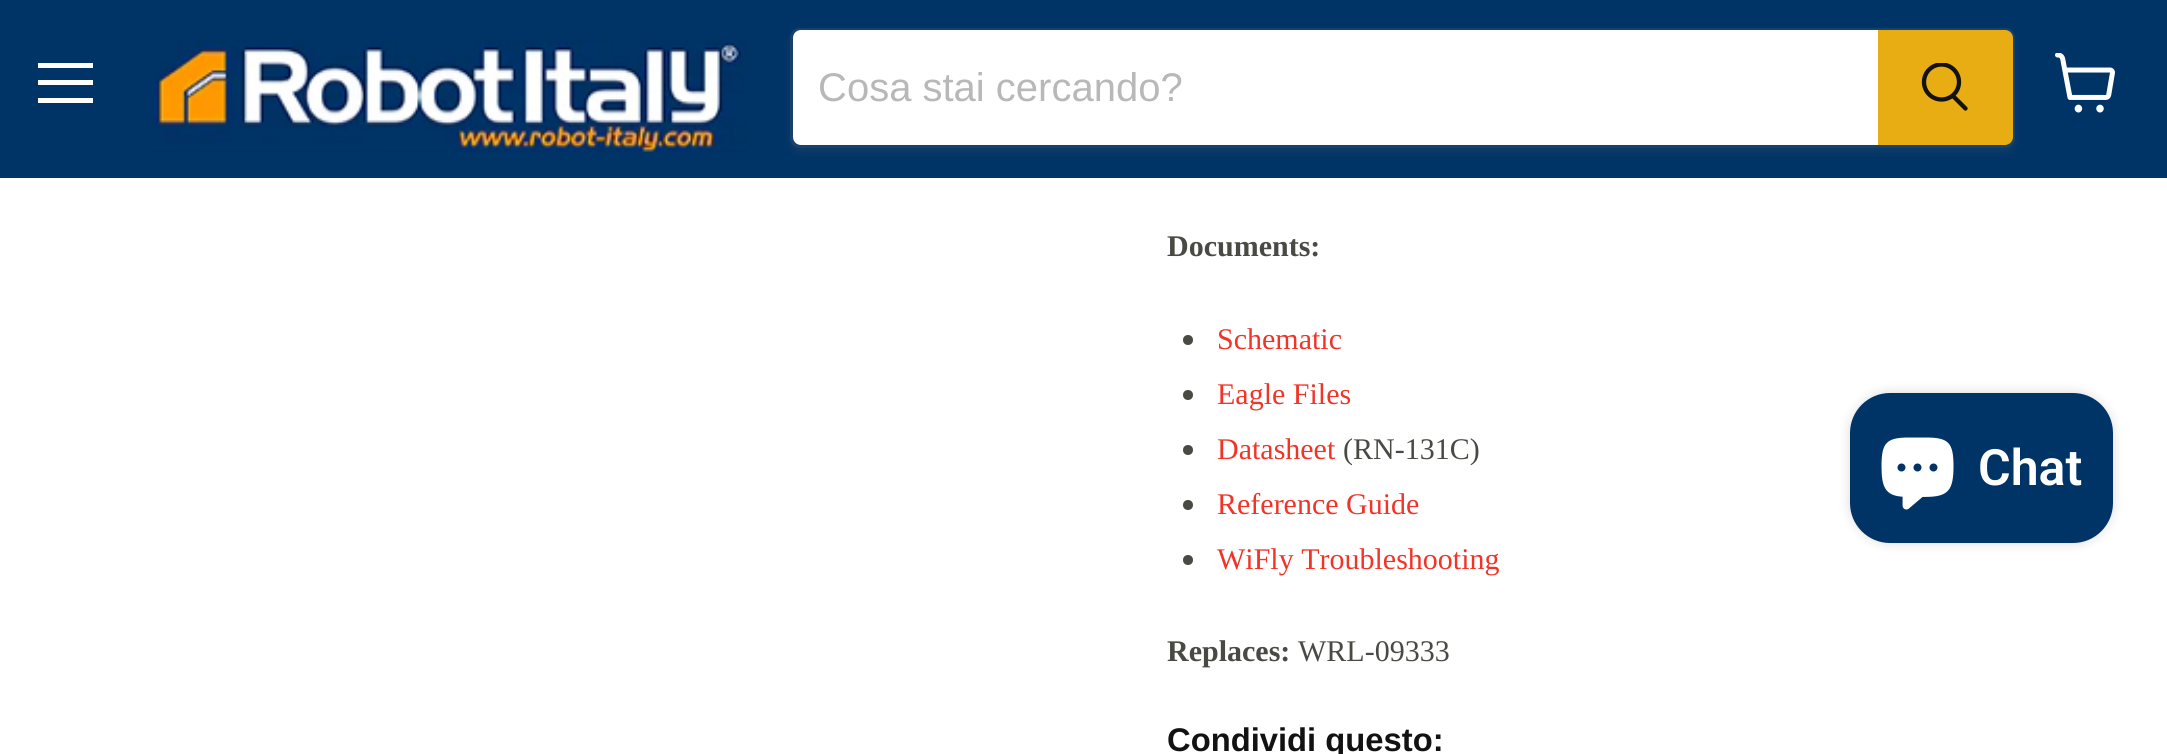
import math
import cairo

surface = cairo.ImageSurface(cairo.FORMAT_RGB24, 2167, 754)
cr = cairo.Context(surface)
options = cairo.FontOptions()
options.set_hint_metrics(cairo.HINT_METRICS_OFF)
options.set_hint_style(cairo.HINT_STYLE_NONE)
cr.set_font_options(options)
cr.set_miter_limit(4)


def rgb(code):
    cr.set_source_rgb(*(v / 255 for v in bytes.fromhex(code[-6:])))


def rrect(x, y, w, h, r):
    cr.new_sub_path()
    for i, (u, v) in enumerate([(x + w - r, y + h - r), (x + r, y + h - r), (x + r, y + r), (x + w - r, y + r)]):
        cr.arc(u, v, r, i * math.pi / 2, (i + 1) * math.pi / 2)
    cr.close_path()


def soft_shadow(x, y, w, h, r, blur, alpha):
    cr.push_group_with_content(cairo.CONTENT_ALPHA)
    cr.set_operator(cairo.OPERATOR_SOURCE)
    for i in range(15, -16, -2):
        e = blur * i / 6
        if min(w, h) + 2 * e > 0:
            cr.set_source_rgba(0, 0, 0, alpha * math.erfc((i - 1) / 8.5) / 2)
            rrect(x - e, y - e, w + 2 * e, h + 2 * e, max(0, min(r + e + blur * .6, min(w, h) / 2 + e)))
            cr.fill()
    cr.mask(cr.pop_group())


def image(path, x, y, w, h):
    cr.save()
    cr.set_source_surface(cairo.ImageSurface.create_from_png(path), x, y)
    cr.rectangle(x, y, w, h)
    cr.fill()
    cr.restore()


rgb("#ffffff")
cr.paint()
for x, y, w, h, color in [
    (0, 0, 2167, 178, "#003366"),
    (38, 63, 55, 5, "#ffffff"),
    (38, 80, 55, 5, "#ffffff"),
    (38, 98, 55, 5, "#ffffff"),
]:
    rgb(color)
    cr.rectangle(x, y, w, h)
    cr.fill()
image("img/1.png", 153, 40, 594, 112)
cr.save()
cr.set_fill_rule(cairo.FILL_RULE_EVEN_ODD)
cr.new_path()
cr.move_to(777, 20)
cr.line_to(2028, 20)
cr.line_to(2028, 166)
cr.line_to(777, 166)
cr.close_path()
cr.move_to(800, 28)
cr.line_to(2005, 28)
cr.curve_to(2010.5, 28, 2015, 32.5, 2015, 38)
cr.line_to(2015, 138)
cr.curve_to(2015, 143.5, 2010.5, 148, 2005, 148)
cr.line_to(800, 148)
cr.curve_to(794.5, 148, 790, 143.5, 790, 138)
cr.line_to(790, 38)
cr.curve_to(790, 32.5, 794.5, 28, 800, 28)
cr.close_path()
cr.clip()
rgb("#808080")
soft_shadow(790, 33, 1225, 120, 10, 4, 0.11)
cr.restore()
rrect(791.5, 29.5, 1222, 117, 8.5)
cr.set_source_rgba(0.502, 0.502, 0.502, 0.2)
cr.set_line_width(3)
cr.stroke()
rgb("#ffffff")
cr.new_path()
cr.move_to(801, 30)
cr.line_to(1878, 30)
cr.line_to(1878, 145)
cr.line_to(801, 145)
cr.curve_to(796.5, 145, 793, 141.5, 793, 137)
cr.line_to(793, 38)
cr.curve_to(793, 33.5, 796.5, 30, 801, 30)
cr.close_path()
cr.fill()
rgb("#e9ad14")
cr.new_path()
cr.move_to(1879.5, 31.5)
cr.line_to(2005, 31.5)
cr.curve_to(2008.5, 31.5, 2011.5, 34.5, 2011.5, 38)
cr.line_to(2011.5, 137)
cr.curve_to(2011.5, 140.5, 2008.5, 143.5, 2005, 143.5)
cr.line_to(1879.5, 143.5)
cr.close_path()
cr.fill_preserve()
cr.stroke()
cr.new_path()
cr.move_to(1965.5, 108.5)
cr.line_to(1953.5, 96.5)
rgb("#121212")
cr.set_line_width(4.3)
cr.set_line_cap(cairo.LINE_CAP_ROUND)
cr.stroke()
cr.save()
cr.rectangle(1920, 63, 50, 52)
cr.clip()
cr.arc(1941.5, 82, 17.5, 0, 2 * math.pi)
cr.set_line_cap(cairo.LINE_CAP_BUTT)
cr.stroke()
cr.restore()
image("img/2.png", 2055, 53, 60, 60)
rgb("#4a4a44")
cr.arc(1188, 340, 5, 0, 2 * math.pi)
cr.fill()
cr.arc(1188, 395, 5, 0, 2 * math.pi)
cr.fill()
cr.arc(1188, 450, 5, 0, 2 * math.pi)
cr.fill()
cr.arc(1188, 505, 5, 0, 2 * math.pi)
cr.fill()
cr.arc(1188, 560, 5, 0, 2 * math.pi)
cr.fill()
rgb("#000000")
soft_shadow(1850, 393, 263, 150, 40, 6, 0.15)
rgb("#003366")
rrect(1850, 393, 263, 150, 40)
cr.fill()
image("img/3.png", 1881, 437, 73, 73)
cr.select_font_face("Liberation Sans")
cr.set_font_size(40)
rgb("#b8b8b8")
cr.move_to(818, 101)
cr.show_text("Cosa stai cercando?")
cr.select_font_face("Liberation Serif", cairo.FONT_SLANT_NORMAL, cairo.FONT_WEIGHT_BOLD)
cr.set_font_size(30)
rgb("#4a4a44")
cr.move_to(1167, 256)
cr.show_text("Documents:")
cr.select_font_face("Liberation Serif")
rgb("#f03528")
for x, y, s in [
    (1217, 349, "Schematic"),
    (1217, 404, "Eagle Files"),
    (1217, 459, "Datasheet"),
]:
    cr.move_to(x, y)
    cr.show_text(s)
rgb("#4a4a44")
cr.move_to(1343, 459)
cr.show_text("(RN-131C)")
rgb("#f03528")
cr.move_to(1217, 514)
cr.show_text("Reference Guide")
cr.move_to(1217, 569)
cr.show_text("WiFly Troubleshooting")
cr.select_font_face("Liberation Serif", cairo.FONT_SLANT_NORMAL, cairo.FONT_WEIGHT_BOLD)
rgb("#4a4a44")
cr.move_to(1167, 661)
cr.show_text("Replaces:")
cr.select_font_face("Liberation Serif")
cr.move_to(1298, 661)
cr.show_text("WRL-09333")
cr.select_font_face("Liberation Sans", cairo.FONT_SLANT_NORMAL, cairo.FONT_WEIGHT_BOLD)
cr.set_font_size(32.75)
rgb("#121212")
cr.move_to(1167, 751)
cr.show_text("Condividi questo:")
cr.select_font_face("Roboto SemiBold")
cr.set_font_size(50)
rgb("#ffffff")
cr.move_to(1978, 485)
cr.show_text("Chat")
surface.write_to_png("page.png")
